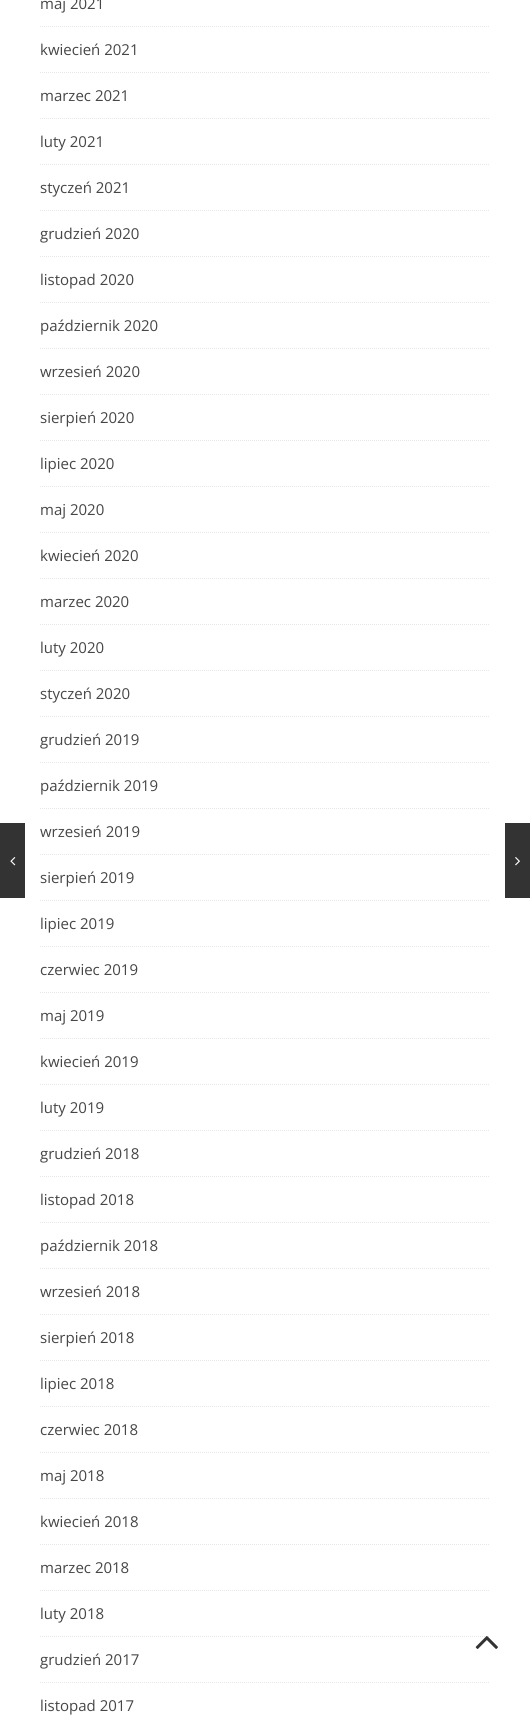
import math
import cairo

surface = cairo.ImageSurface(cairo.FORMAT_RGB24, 530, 1721)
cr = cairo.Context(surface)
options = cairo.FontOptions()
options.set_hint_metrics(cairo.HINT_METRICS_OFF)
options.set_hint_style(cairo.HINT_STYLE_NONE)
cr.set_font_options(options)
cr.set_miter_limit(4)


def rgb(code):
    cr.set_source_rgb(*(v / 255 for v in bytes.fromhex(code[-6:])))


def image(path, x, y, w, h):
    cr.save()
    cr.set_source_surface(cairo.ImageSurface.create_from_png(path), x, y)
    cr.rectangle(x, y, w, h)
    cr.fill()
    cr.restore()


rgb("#ffffff")
cr.paint()
cr.new_path()
cr.move_to(40, 26.5)
cr.line_to(490, 26.5)
rgb("#e8e8e8")
cr.set_line_width(1)
cr.set_dash([1, 1])
cr.stroke()
cr.new_path()
cr.move_to(40, 72.5)
cr.line_to(490, 72.5)
cr.stroke()
cr.new_path()
cr.move_to(40, 118.5)
cr.line_to(490, 118.5)
cr.stroke()
cr.new_path()
cr.move_to(40, 164.5)
cr.line_to(490, 164.5)
cr.stroke()
cr.new_path()
cr.move_to(40, 210.5)
cr.line_to(490, 210.5)
cr.stroke()
cr.new_path()
cr.move_to(40, 256.5)
cr.line_to(490, 256.5)
cr.stroke()
cr.new_path()
cr.move_to(40, 302.5)
cr.line_to(490, 302.5)
cr.stroke()
cr.new_path()
cr.move_to(40, 348.5)
cr.line_to(490, 348.5)
cr.stroke()
cr.new_path()
cr.move_to(40, 394.5)
cr.line_to(490, 394.5)
cr.stroke()
cr.new_path()
cr.move_to(40, 440.5)
cr.line_to(490, 440.5)
cr.stroke()
cr.new_path()
cr.move_to(40, 486.5)
cr.line_to(490, 486.5)
cr.stroke()
cr.new_path()
cr.move_to(40, 532.5)
cr.line_to(490, 532.5)
cr.stroke()
cr.new_path()
cr.move_to(40, 578.5)
cr.line_to(490, 578.5)
cr.stroke()
cr.new_path()
cr.move_to(40, 624.5)
cr.line_to(490, 624.5)
cr.stroke()
cr.new_path()
cr.move_to(40, 670.5)
cr.line_to(490, 670.5)
cr.stroke()
cr.new_path()
cr.move_to(40, 716.5)
cr.line_to(490, 716.5)
cr.stroke()
cr.new_path()
cr.move_to(40, 762.5)
cr.line_to(490, 762.5)
cr.stroke()
cr.new_path()
cr.move_to(40, 808.5)
cr.line_to(490, 808.5)
cr.stroke()
cr.new_path()
cr.move_to(40, 854.5)
cr.line_to(490, 854.5)
cr.stroke()
cr.new_path()
cr.move_to(40, 900.5)
cr.line_to(490, 900.5)
cr.stroke()
cr.new_path()
cr.move_to(40, 946.5)
cr.line_to(490, 946.5)
cr.stroke()
cr.new_path()
cr.move_to(40, 992.5)
cr.line_to(490, 992.5)
cr.stroke()
cr.new_path()
cr.move_to(40, 1038.5)
cr.line_to(490, 1038.5)
cr.stroke()
cr.new_path()
cr.move_to(40, 1084.5)
cr.line_to(490, 1084.5)
cr.stroke()
cr.new_path()
cr.move_to(40, 1130.5)
cr.line_to(490, 1130.5)
cr.stroke()
cr.new_path()
cr.move_to(40, 1176.5)
cr.line_to(490, 1176.5)
cr.stroke()
cr.new_path()
cr.move_to(40, 1222.5)
cr.line_to(490, 1222.5)
cr.stroke()
cr.new_path()
cr.move_to(40, 1268.5)
cr.line_to(490, 1268.5)
cr.stroke()
cr.new_path()
cr.move_to(40, 1314.5)
cr.line_to(490, 1314.5)
cr.stroke()
cr.new_path()
cr.move_to(40, 1360.5)
cr.line_to(490, 1360.5)
cr.stroke()
cr.new_path()
cr.move_to(40, 1406.5)
cr.line_to(490, 1406.5)
cr.stroke()
cr.new_path()
cr.move_to(40, 1452.5)
cr.line_to(490, 1452.5)
cr.stroke()
cr.new_path()
cr.move_to(40, 1498.5)
cr.line_to(490, 1498.5)
cr.stroke()
cr.new_path()
cr.move_to(40, 1544.5)
cr.line_to(490, 1544.5)
cr.stroke()
cr.new_path()
cr.move_to(40, 1590.5)
cr.line_to(490, 1590.5)
cr.stroke()
cr.new_path()
cr.move_to(40, 1636.5)
cr.line_to(490, 1636.5)
cr.stroke()
cr.new_path()
cr.move_to(40, 1682.5)
cr.line_to(490, 1682.5)
cr.stroke()
rgb("#333333")
cr.rectangle(0, 823, 25, 75)
cr.fill()
image("img/1.png", 10, 857, 6, 9)
cr.rectangle(505, 823, 25, 75)
cr.fill()
image("img/2.png", 515, 857, 5, 9)
image("img/3.png", 475, 1636, 23, 13)
cr.select_font_face("Open Sans")
cr.set_font_size(15)
rgb("#464646")
for x, y, s in [
    (40, 9, "maj 2021"),
    (40, 55, "kwiecień 2021"),
    (40, 101, "marzec 2021"),
    (40, 147, "luty 2021"),
    (40, 193, "styczeń 2021"),
    (40, 239, "grudzień 2020"),
    (40, 285, "listopad 2020"),
    (40, 331, "październik 2020"),
    (40, 377, "wrzesień 2020"),
    (40, 423, "sierpień 2020"),
    (40, 469, "lipiec 2020"),
    (40, 515, "maj 2020"),
    (40, 561, "kwiecień 2020"),
    (40, 607, "marzec 2020"),
    (40, 653, "luty 2020"),
    (40, 699, "styczeń 2020"),
    (40, 745, "grudzień 2019"),
    (40, 791, "październik 2019"),
    (40, 837, "wrzesień 2019"),
    (40, 883, "sierpień 2019"),
    (40, 929, "lipiec 2019"),
    (40, 975, "czerwiec 2019"),
    (40, 1021, "maj 2019"),
    (40, 1067, "kwiecień 2019"),
    (40, 1113, "luty 2019"),
    (40, 1159, "grudzień 2018"),
    (40, 1205, "listopad 2018"),
    (40, 1251, "październik 2018"),
    (40, 1297, "wrzesień 2018"),
    (40, 1343, "sierpień 2018"),
    (40, 1389, "lipiec 2018"),
    (40, 1435, "czerwiec 2018"),
    (40, 1481, "maj 2018"),
    (40, 1527, "kwiecień 2018"),
    (40, 1573, "marzec 2018"),
    (40, 1619, "luty 2018"),
    (40, 1665, "grudzień 2017"),
    (40, 1711, "listopad 2017"),
]:
    cr.move_to(x, y)
    cr.show_text(s)
surface.write_to_png("page.png")
